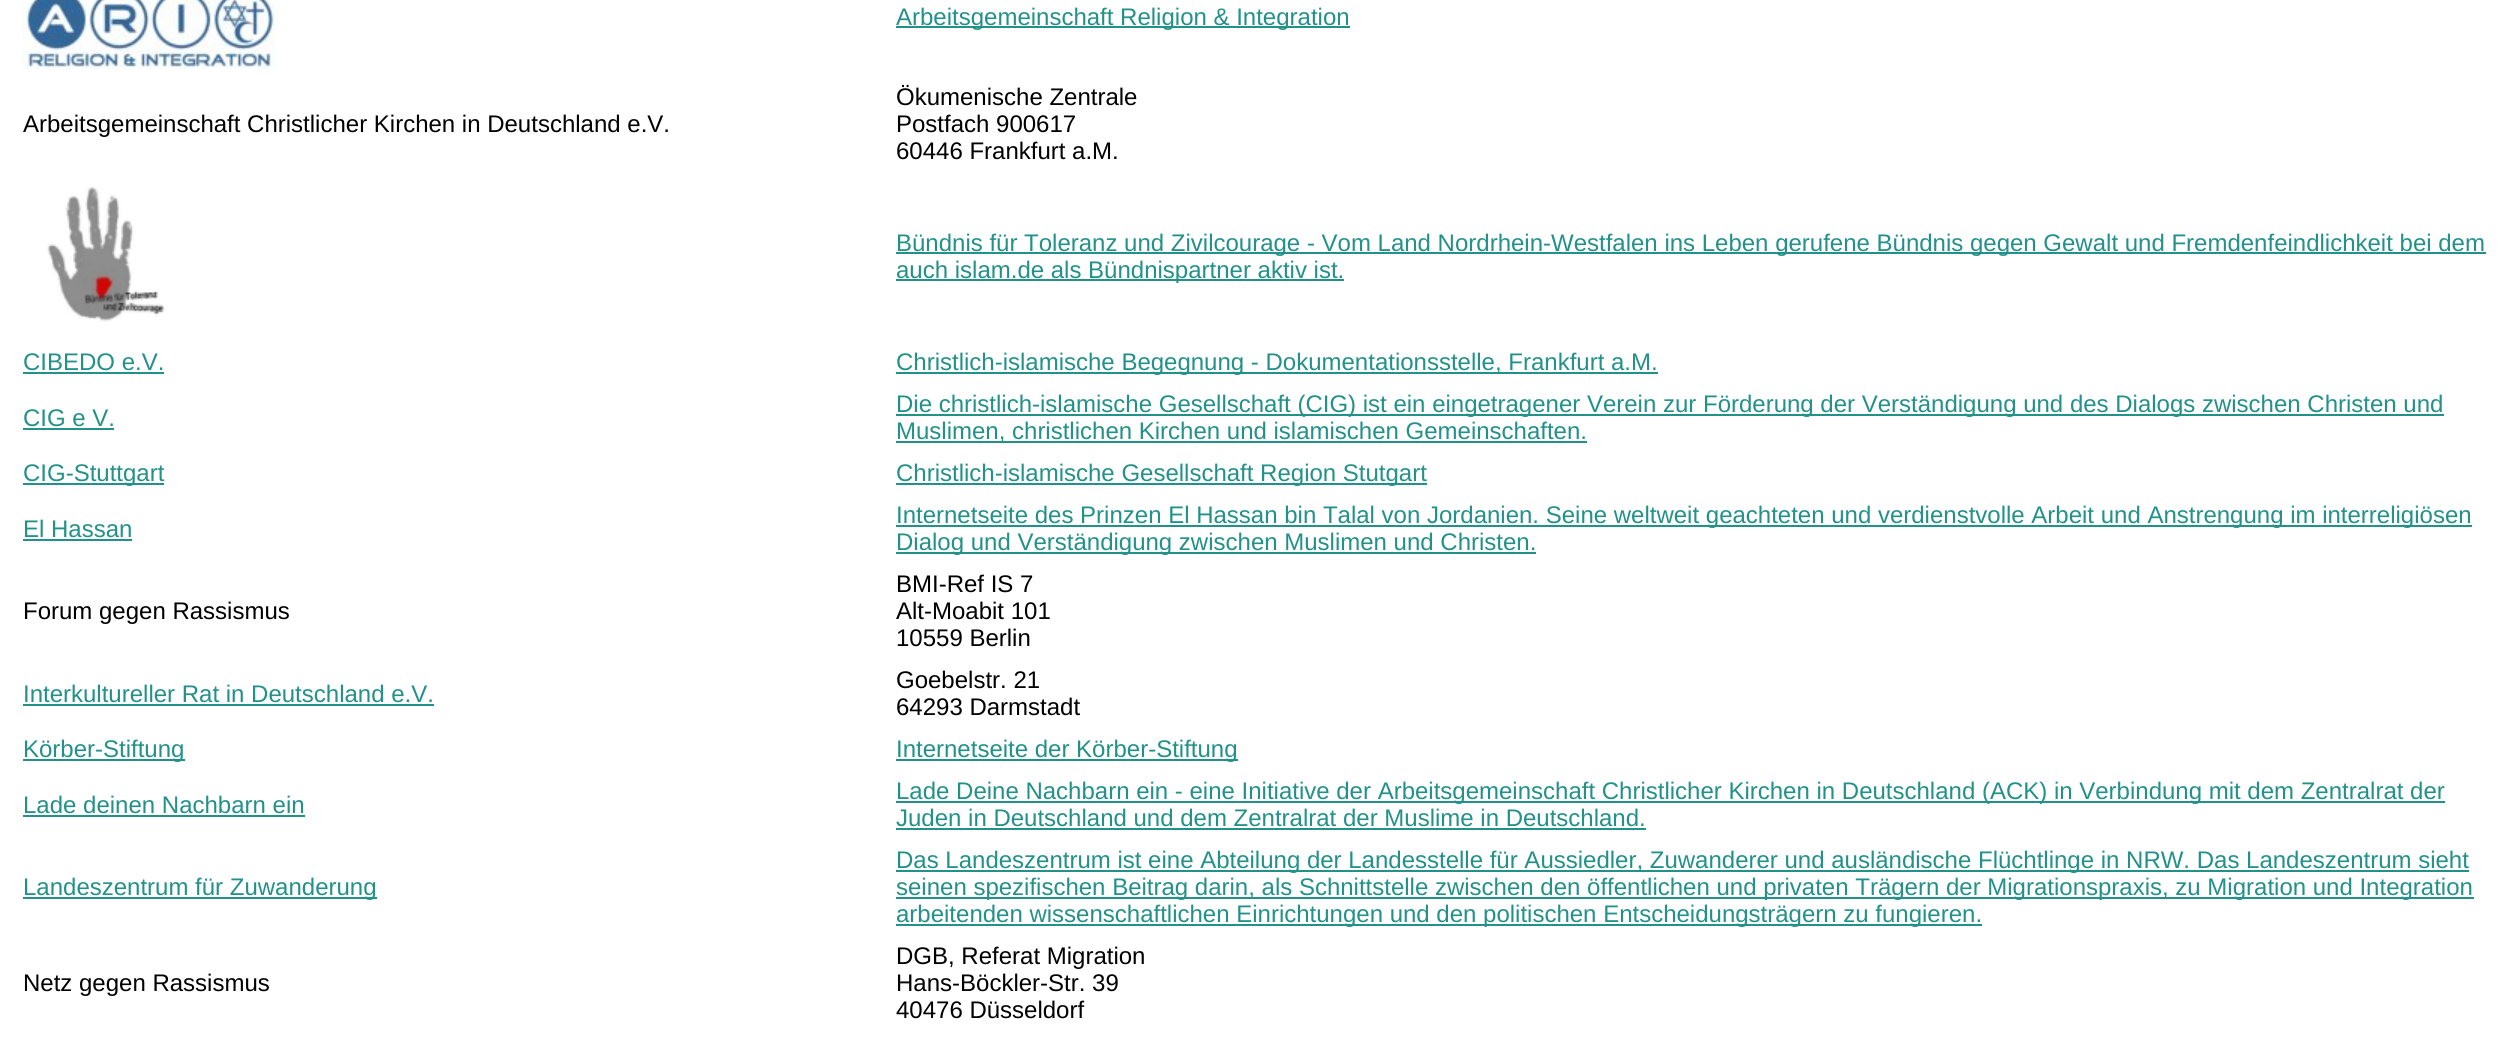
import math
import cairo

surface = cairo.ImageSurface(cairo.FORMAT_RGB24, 2511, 1044)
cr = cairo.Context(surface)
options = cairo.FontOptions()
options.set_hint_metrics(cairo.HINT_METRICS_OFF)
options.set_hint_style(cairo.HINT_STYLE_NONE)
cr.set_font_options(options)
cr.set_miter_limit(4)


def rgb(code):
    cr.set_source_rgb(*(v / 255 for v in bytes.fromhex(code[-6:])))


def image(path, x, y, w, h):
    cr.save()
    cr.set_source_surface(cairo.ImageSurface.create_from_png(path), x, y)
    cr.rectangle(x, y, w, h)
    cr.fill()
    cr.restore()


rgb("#ffffff")
cr.paint()
image("img/1.png", 22, 0, 256, 69)
rgb("#229188")
cr.rectangle(896, 26, 454, 2)
cr.fill()
image("img/2.png", 47, 186, 118, 136)
for x, y, w, h, color in [
    (896, 252, 1590, 2, "#229188"),
    (896, 279, 448, 2, "#229188"),
    (23, 372, 141, 2, "#229188"),
    (896, 372, 762, 2, "#229188"),
    (23, 428, 91, 2, "#229188"),
    (896, 414, 1548, 2, "#229188"),
    (896, 441, 691, 2, "#229188"),
    (23, 483, 141, 2, "#229188"),
    (896, 483, 531, 2, "#229188"),
    (23, 539, 109, 2, "#229188"),
    (896, 525, 1576, 2, "#229188"),
    (896, 552, 640, 2, "#229188"),
    (23, 704, 411, 2, "#229188"),
    (23, 759, 162, 2, "#229188"),
    (896, 759, 342, 2, "#229188"),
    (23, 815, 282, 2, "#229188"),
    (896, 801, 1549, 2, "#229188"),
    (896, 828, 750, 2, "#229188"),
    (23, 897, 354, 2, "#229188"),
    (896, 870, 1573, 2, "#229188"),
    (896, 897, 1578, 2, "#229188"),
    (896, 924, 1086, 2, "#229188"),
]:
    rgb(color)
    cr.rectangle(x, y, w, h)
    cr.fill()
cr.select_font_face("Liberation Sans")
cr.set_font_size(24)
cr.move_to(896, 25)
cr.show_text("Arbeitsgemeinschaft Religion & Integration")
rgb("#000000")
for x, y, s in [
    (23, 132, "Arbeitsgemeinschaft Christlicher Kirchen in Deutschland e.V."),
    (896, 105, "Ökumenische Zentrale"),
    (896, 132, "Postfach 900617"),
    (896, 159, "60446 Frankfurt a.M."),
]:
    cr.move_to(x, y)
    cr.show_text(s)
rgb("#229188")
for x, y, s in [
    (896, 251, "Bündnis für Toleranz und Zivilcourage - Vom Land Nordrhein-Westfalen ins Leben gerufene Bündnis gegen Gewalt und Fremdenfeindlichkeit bei dem"),
    (896, 278, "auch islam.de als Bündnispartner aktiv ist."),
    (23, 370, "CIBEDO e.V."),
    (896, 370, "Christlich-islamische Begegnung - Dokumentationsstelle, Frankfurt a.M."),
    (23, 426, "CIG e V."),
    (896, 412, "Die christlich-islamische Gesellschaft (CIG) ist ein eingetragener Verein zur Förderung der Verständigung und des Dialogs zwischen Christen und"),
    (896, 439, "Muslimen, christlichen Kirchen und islamischen Gemeinschaften."),
    (23, 481, "CIG-Stuttgart"),
    (896, 481, "Christlich-islamische Gesellschaft Region Stutgart"),
    (23, 537, "El Hassan"),
    (896, 523, "Internetseite des Prinzen El Hassan bin Talal von Jordanien. Seine weltweit geachteten und verdienstvolle Arbeit und Anstrengung im interreligiösen"),
    (896, 550, "Dialog und Verständigung zwischen Muslimen und Christen."),
]:
    cr.move_to(x, y)
    cr.show_text(s)
rgb("#000000")
for x, y, s in [
    (23, 619, "Forum gegen Rassismus"),
    (896, 592, "BMI-Ref IS 7"),
    (896, 619, "Alt-Moabit 101"),
    (896, 646, "10559 Berlin"),
]:
    cr.move_to(x, y)
    cr.show_text(s)
rgb("#229188")
cr.move_to(23, 702)
cr.show_text("Interkultureller Rat in Deutschland e.V.")
rgb("#000000")
cr.move_to(896, 688)
cr.show_text("Goebelstr. 21")
cr.move_to(896, 715)
cr.show_text("64293 Darmstadt")
rgb("#229188")
for x, y, s in [
    (23, 757, "Körber-Stiftung"),
    (896, 757, "Internetseite der Körber-Stiftung"),
    (23, 813, "Lade deinen Nachbarn ein"),
    (896, 799, "Lade Deine Nachbarn ein - eine Initiative der Arbeitsgemeinschaft Christlicher Kirchen in Deutschland (ACK) in Verbindung mit dem Zentralrat der"),
    (896, 826, "Juden in Deutschland und dem Zentralrat der Muslime in Deutschland."),
    (23, 895, "Landeszentrum für Zuwanderung"),
    (896, 868, "Das Landeszentrum ist eine Abteilung der Landesstelle für Aussiedler, Zuwanderer und ausländische Flüchtlinge in NRW. Das Landeszentrum sieht"),
    (896, 895, "seinen spezifischen Beitrag darin, als Schnittstelle zwischen den öffentlichen und privaten Trägern der Migrationspraxis, zu Migration und Integration"),
    (896, 922, "arbeitenden wissenschaftlichen Einrichtungen und den politischen Entscheidungsträgern zu fungieren."),
]:
    cr.move_to(x, y)
    cr.show_text(s)
rgb("#000000")
for x, y, s in [
    (23, 991, "Netz gegen Rassismus"),
    (896, 964, "DGB, Referat Migration"),
    (896, 991, "Hans-Böckler-Str. 39"),
    (896, 1018, "40476 Düsseldorf"),
]:
    cr.move_to(x, y)
    cr.show_text(s)
surface.write_to_png("page.png")
